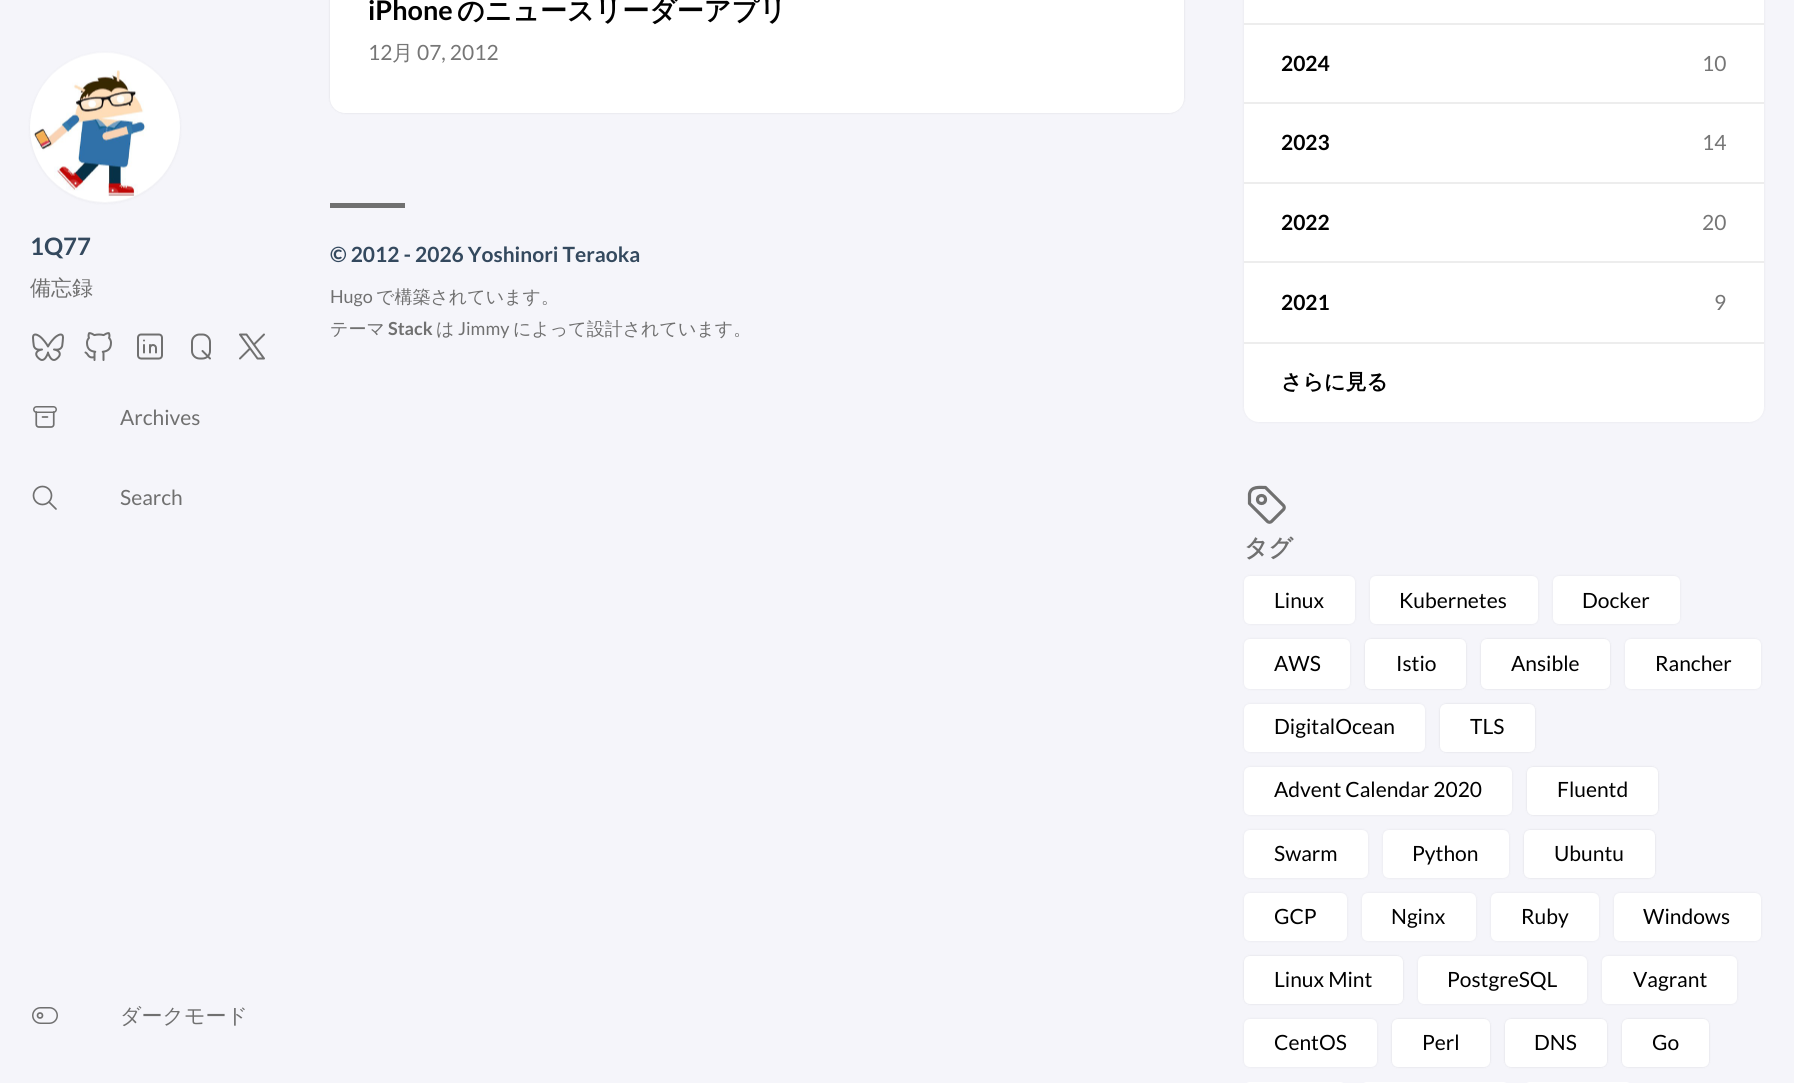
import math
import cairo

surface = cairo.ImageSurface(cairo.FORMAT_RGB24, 1794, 1083)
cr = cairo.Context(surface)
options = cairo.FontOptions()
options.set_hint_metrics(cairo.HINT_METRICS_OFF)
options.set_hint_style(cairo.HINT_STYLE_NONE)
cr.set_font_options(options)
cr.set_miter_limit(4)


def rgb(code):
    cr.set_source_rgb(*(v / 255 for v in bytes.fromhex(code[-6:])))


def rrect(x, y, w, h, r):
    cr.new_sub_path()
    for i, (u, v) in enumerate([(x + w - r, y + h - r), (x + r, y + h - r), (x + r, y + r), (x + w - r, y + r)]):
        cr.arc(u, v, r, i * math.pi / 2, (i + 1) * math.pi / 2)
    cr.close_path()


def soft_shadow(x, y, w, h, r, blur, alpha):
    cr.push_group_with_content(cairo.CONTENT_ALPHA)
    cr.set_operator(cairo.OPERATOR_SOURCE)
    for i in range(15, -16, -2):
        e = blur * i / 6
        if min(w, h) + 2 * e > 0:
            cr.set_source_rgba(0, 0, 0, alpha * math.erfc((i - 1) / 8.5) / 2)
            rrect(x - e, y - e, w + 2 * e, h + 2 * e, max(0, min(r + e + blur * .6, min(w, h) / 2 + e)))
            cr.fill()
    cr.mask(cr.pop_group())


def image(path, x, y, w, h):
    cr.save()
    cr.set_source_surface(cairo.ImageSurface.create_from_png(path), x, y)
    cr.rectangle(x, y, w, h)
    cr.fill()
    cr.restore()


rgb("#f5f5fa")
cr.paint()
rgb("#000000")
soft_shadow(30, 53, 150, 150, 75, 1.5, 0.06)
image("img/1.png", 30, 52, 150, 151)
image("img/2.png", 32, 333, 32, 28)
image("img/3.png", 84, 332, 28, 29)
image("img/4.png", 137, 333, 26, 27)
image("img/5.png", 191, 333, 20, 27)
cr.new_path()
cr.move_to(240, 334.5)
cr.line_to(257.5, 358.5)
cr.line_to(264, 358.5)
cr.line_to(246.5, 334.5)
cr.close_path()
cr.move_to(240, 358.5)
cr.line_to(250, 348.5)
cr.move_to(254, 344.5)
cr.line_to(264, 334.5)
rgb("#707070")
cr.set_line_cap(cairo.LINE_CAP_ROUND)
cr.set_line_join(cairo.LINE_JOIN_ROUND)
cr.stroke()
image("img/6.png", 33, 406, 24, 22)
cr.arc(42.5, 495.5, 9, 0, 2 * math.pi)
cr.set_line_width(1.7)
cr.set_line_cap(cairo.LINE_CAP_BUTT)
cr.set_line_join(cairo.LINE_JOIN_MITER)
cr.stroke()
cr.new_path()
cr.move_to(56, 509)
cr.line_to(49, 502)
cr.set_line_cap(cairo.LINE_CAP_ROUND)
cr.set_line_join(cairo.LINE_JOIN_ROUND)
cr.stroke()
cr.arc(40, 1015.5, 2.5, 0, 2 * math.pi)
cr.set_line_cap(cairo.LINE_CAP_BUTT)
cr.set_line_join(cairo.LINE_JOIN_MITER)
cr.stroke()
rrect(32.75, 1007.75, 24.5, 15.5, 7.75)
cr.set_line_width(1.5)
cr.stroke()
rgb("#000000")
soft_shadow(330, -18, 854, 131, 15, 1, 0.04)
soft_shadow(330, -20, 854, 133, 15, 1.5, 0.06)
rgb("#ffffff")
rrect(330, -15, 854, 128, 15)
cr.fill()
rgb("#707070")
cr.rectangle(330, 203, 75, 5)
cr.fill()
rgb("#000000")
soft_shadow(1244, -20, 520, 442, 15, 1.5, 0.06)
rgb("#ffffff")
rrect(1244, -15, 520, 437, 15)
cr.fill()
for x, y, w, h, color in [
    (1244, 23, 520, 2, "#ededed"),
    (1244, 102, 520, 2, "#ededed"),
    (1244, 182, 520, 2, "#ededed"),
    (1244, 261, 520, 2, "#ededed"),
    (1244, 342, 520, 2, "#ededed"),
]:
    rgb(color)
    cr.rectangle(x, y, w, h)
    cr.fill()
cr.new_path()
cr.move_to(1265.5, 487.5)
cr.line_to(1283.5, 505.5)
cr.curve_to(1284.5, 506.5, 1284.5, 508.5, 1283.5, 509.5)
cr.line_to(1271.5, 521.5)
cr.curve_to(1270.5, 522.5, 1268.5, 522.5, 1267.5, 521.5)
cr.line_to(1249.5, 503.5)
cr.line_to(1249.5, 494)
cr.curve_to(1251, 486, 1259.5, 487.5, 1265.5, 487.5)
rgb("#707070")
cr.set_line_width(3.2)
cr.set_line_cap(cairo.LINE_CAP_ROUND)
cr.set_line_join(cairo.LINE_JOIN_ROUND)
cr.stroke()
cr.arc(1261.5, 499.5, 4, 0, 2 * math.pi)
cr.set_line_cap(cairo.LINE_CAP_BUTT)
cr.set_line_join(cairo.LINE_JOIN_MITER)
cr.stroke()
rgb("#000000")
soft_shadow(1244, 576, 111, 48, 6, 1.5, 0.06)
rgb("#ffffff")
rrect(1244, 576, 111, 48, 6)
cr.fill()
rgb("#000000")
soft_shadow(1370, 576, 168, 48, 6, 1.5, 0.06)
rgb("#ffffff")
rrect(1370, 576, 168, 48, 6)
cr.fill()
rgb("#000000")
soft_shadow(1553, 576, 127, 48, 6, 1.5, 0.06)
rgb("#ffffff")
rrect(1553, 576, 127, 48, 6)
cr.fill()
rgb("#000000")
soft_shadow(1244, 639, 106, 50, 6, 1.5, 0.06)
rgb("#ffffff")
rrect(1244, 639, 106, 50, 6)
cr.fill()
rgb("#000000")
soft_shadow(1365, 639, 101, 50, 6, 1, 0.04)
soft_shadow(1365, 639, 101, 50, 6, 1.5, 0.06)
rgb("#ffffff")
rrect(1365, 639, 101, 50, 6)
cr.fill()
rgb("#000000")
soft_shadow(1481, 639, 129, 50, 6, 1, 0.04)
soft_shadow(1481, 639, 129, 50, 6, 1.5, 0.06)
rgb("#ffffff")
rrect(1481, 639, 129, 50, 6)
cr.fill()
rgb("#000000")
soft_shadow(1625, 639, 136, 50, 6, 1.5, 0.06)
rgb("#ffffff")
rrect(1625, 639, 136, 50, 6)
cr.fill()
rgb("#000000")
soft_shadow(1244, 704, 181, 48, 6, 1.5, 0.06)
rgb("#ffffff")
rrect(1244, 704, 181, 48, 6)
cr.fill()
rgb("#000000")
soft_shadow(1440, 704, 95, 48, 6, 1, 0.04)
soft_shadow(1440, 704, 95, 48, 6, 1.5, 0.06)
rgb("#ffffff")
rrect(1440, 704, 95, 48, 6)
cr.fill()
rgb("#000000")
soft_shadow(1244, 767, 268, 48, 6, 1.5, 0.06)
rgb("#ffffff")
rrect(1244, 767, 268, 48, 6)
cr.fill()
rgb("#000000")
soft_shadow(1527, 767, 131, 48, 6, 1, 0.04)
soft_shadow(1527, 767, 131, 48, 6, 1.5, 0.06)
rgb("#ffffff")
rrect(1527, 767, 131, 48, 6)
cr.fill()
rgb("#000000")
soft_shadow(1244, 830, 124, 48, 6, 1.5, 0.06)
rgb("#ffffff")
rrect(1244, 830, 124, 48, 6)
cr.fill()
rgb("#000000")
soft_shadow(1383, 830, 126, 48, 6, 1.5, 0.06)
rgb("#ffffff")
rrect(1383, 830, 126, 48, 6)
cr.fill()
rgb("#000000")
soft_shadow(1524, 830, 131, 48, 6, 1, 0.04)
soft_shadow(1524, 830, 131, 48, 6, 1.5, 0.06)
rgb("#ffffff")
rrect(1524, 830, 131, 48, 6)
cr.fill()
rgb("#000000")
soft_shadow(1244, 893, 103, 48, 6, 1.5, 0.06)
rgb("#ffffff")
rrect(1244, 893, 103, 48, 6)
cr.fill()
rgb("#000000")
soft_shadow(1362, 893, 114, 48, 6, 1.5, 0.06)
rgb("#ffffff")
rrect(1362, 893, 114, 48, 6)
cr.fill()
rgb("#000000")
soft_shadow(1491, 893, 108, 48, 6, 1.5, 0.06)
rgb("#ffffff")
rrect(1491, 893, 108, 48, 6)
cr.fill()
rgb("#000000")
soft_shadow(1614, 893, 147, 48, 6, 1.5, 0.06)
rgb("#ffffff")
rrect(1614, 893, 147, 48, 6)
cr.fill()
rgb("#000000")
soft_shadow(1244, 956, 159, 48, 6, 1, 0.04)
soft_shadow(1244, 956, 159, 48, 6, 1.5, 0.06)
rgb("#ffffff")
rrect(1244, 956, 159, 48, 6)
cr.fill()
rgb("#000000")
soft_shadow(1418, 956, 169, 48, 6, 1.5, 0.06)
rgb("#ffffff")
rrect(1418, 956, 169, 48, 6)
cr.fill()
rgb("#000000")
soft_shadow(1602, 956, 135, 48, 6, 1.5, 0.06)
rgb("#ffffff")
rrect(1602, 956, 135, 48, 6)
cr.fill()
rgb("#000000")
soft_shadow(1244, 1019, 133, 48, 6, 1.5, 0.06)
rgb("#ffffff")
rrect(1244, 1019, 133, 48, 6)
cr.fill()
rgb("#000000")
soft_shadow(1392, 1019, 98, 48, 6, 1, 0.04)
soft_shadow(1392, 1019, 98, 48, 6, 1.5, 0.06)
rgb("#ffffff")
rrect(1392, 1019, 98, 48, 6)
cr.fill()
rgb("#000000")
soft_shadow(1505, 1019, 102, 48, 6, 1, 0.04)
soft_shadow(1505, 1019, 102, 48, 6, 1.5, 0.06)
rgb("#ffffff")
rrect(1505, 1019, 102, 48, 6)
cr.fill()
rgb("#000000")
soft_shadow(1622, 1019, 87, 48, 6, 1, 0.04)
soft_shadow(1622, 1019, 87, 48, 6, 1.5, 0.06)
rgb("#ffffff")
rrect(1622, 1019, 87, 48, 6)
cr.fill()
rrect(1244, 1082, 102, 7, 6)
cr.fill()
rrect(1361, 1082, 148, 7, 6)
cr.fill()
rrect(1524, 1082, 108, 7, 6)
cr.fill()
cr.select_font_face("Lato", cairo.FONT_SLANT_NORMAL, cairo.FONT_WEIGHT_BOLD)
cr.set_font_size(24)
rgb("#34495e")
cr.move_to(30, 255)
cr.show_text("1Q77")
cr.select_font_face("WenQuanYi Zen Hei Medium")
cr.set_font_size(21)
rgb("#707070")
cr.move_to(30, 295)
cr.show_text("備忘録")
cr.select_font_face("Lato")
cr.move_to(120, 425)
cr.show_text("Archives")
cr.move_to(120, 505)
cr.show_text("Search")
cr.select_font_face("WenQuanYi Zen Hei Medium")
cr.move_to(120, 1023)
cr.show_text("ダークモード")
cr.select_font_face("Lato", cairo.FONT_SLANT_NORMAL, cairo.FONT_WEIGHT_BOLD)
cr.set_font_size(27)
rgb("#000000")
cr.move_to(368, 20)
cr.show_text("iPhone")
cr.select_font_face("WenQuanYi Zen Hei", cairo.FONT_SLANT_NORMAL, cairo.FONT_WEIGHT_BOLD)
cr.move_to(457, 20)
cr.show_text("のニュースリーダーアプリ")
cr.select_font_face("Lato")
cr.set_font_size(21)
rgb("#767676")
cr.move_to(368, 60)
cr.show_text("12")
cr.select_font_face("WenQuanYi Zen Hei Medium")
cr.move_to(392, 60)
cr.show_text("月")
cr.select_font_face("Lato")
cr.move_to(417, 60)
cr.show_text("07, 2012")
cr.select_font_face("Lato", cairo.FONT_SLANT_NORMAL, cairo.FONT_WEIGHT_BOLD)
rgb("#34495e")
cr.move_to(330, 262)
cr.show_text("© 2012 - 2026 Yoshinori Teraoka")
cr.select_font_face("Lato")
cr.set_font_size(18)
rgb("#707070")
cr.move_to(330, 303)
cr.show_text("Hugo")
cr.select_font_face("WenQuanYi Zen Hei Medium")
cr.move_to(376, 303)
cr.show_text("で構築されています。")
cr.move_to(330, 335)
cr.show_text("テーマ")
cr.select_font_face("Lato", cairo.FONT_SLANT_NORMAL, cairo.FONT_WEIGHT_BOLD)
cr.move_to(388, 335)
cr.show_text("Stack")
cr.select_font_face("WenQuanYi Zen Hei Medium")
cr.move_to(436, 335)
cr.show_text("は")
cr.select_font_face("Lato")
cr.move_to(458, 335)
cr.show_text("Jimmy")
cr.select_font_face("WenQuanYi Zen Hei Medium")
cr.move_to(513, 335)
cr.show_text("によって設計されています。")
cr.select_font_face("Lato", cairo.FONT_SLANT_NORMAL, cairo.FONT_WEIGHT_BOLD)
cr.set_font_size(21)
rgb("#000000")
cr.move_to(1281, 71)
cr.show_text("2024")
cr.select_font_face("Lato")
rgb("#767676")
cr.move_to(1702, 71)
cr.show_text("10")
cr.select_font_face("Lato", cairo.FONT_SLANT_NORMAL, cairo.FONT_WEIGHT_BOLD)
rgb("#000000")
cr.move_to(1281, 150)
cr.show_text("2023")
cr.select_font_face("Lato")
rgb("#767676")
cr.move_to(1702, 150)
cr.show_text("14")
cr.select_font_face("Lato", cairo.FONT_SLANT_NORMAL, cairo.FONT_WEIGHT_BOLD)
rgb("#000000")
cr.move_to(1281, 230)
cr.show_text("2022")
cr.select_font_face("Lato")
rgb("#767676")
cr.move_to(1702, 230)
cr.show_text("20")
cr.select_font_face("Lato", cairo.FONT_SLANT_NORMAL, cairo.FONT_WEIGHT_BOLD)
rgb("#000000")
cr.move_to(1281, 310)
cr.show_text("2021")
cr.select_font_face("Lato")
rgb("#767676")
cr.move_to(1714, 310)
cr.show_text("9")
cr.select_font_face("WenQuanYi Zen Hei", cairo.FONT_SLANT_NORMAL, cairo.FONT_WEIGHT_BOLD)
rgb("#000000")
cr.move_to(1281, 389)
cr.show_text("さらに見る")
cr.set_font_size(24)
rgb("#707070")
cr.move_to(1244, 556)
cr.show_text("タグ")
cr.select_font_face("Lato")
cr.set_font_size(21)
rgb("#000000")
for x, y, s in [
    (1274, 608, "Linux"),
    (1399, 608, "Kubernetes"),
    (1582, 608, "Docker"),
    (1274, 671, "AWS"),
    (1396, 671, "Istio"),
    (1511, 671, "Ansible"),
    (1655, 671, "Rancher"),
    (1274, 734, "DigitalOcean"),
    (1470, 734, "TLS"),
    (1274, 797, "Advent Calendar 2020"),
    (1557, 797, "Fluentd"),
    (1274, 861, "Swarm"),
    (1412, 861, "Python"),
    (1554, 861, "Ubuntu"),
    (1274, 924, "GCP"),
    (1391, 924, "Nginx"),
    (1521, 924, "Ruby"),
    (1643, 924, "Windows"),
    (1274, 987, "Linux Mint"),
    (1447, 987, "PostgreSQL"),
    (1633, 987, "Vagrant"),
    (1274, 1050, "CentOS"),
    (1422, 1050, "Perl"),
    (1534, 1050, "DNS"),
    (1652, 1050, "Go"),
]:
    cr.move_to(x, y)
    cr.show_text(s)
surface.write_to_png("page.png")
